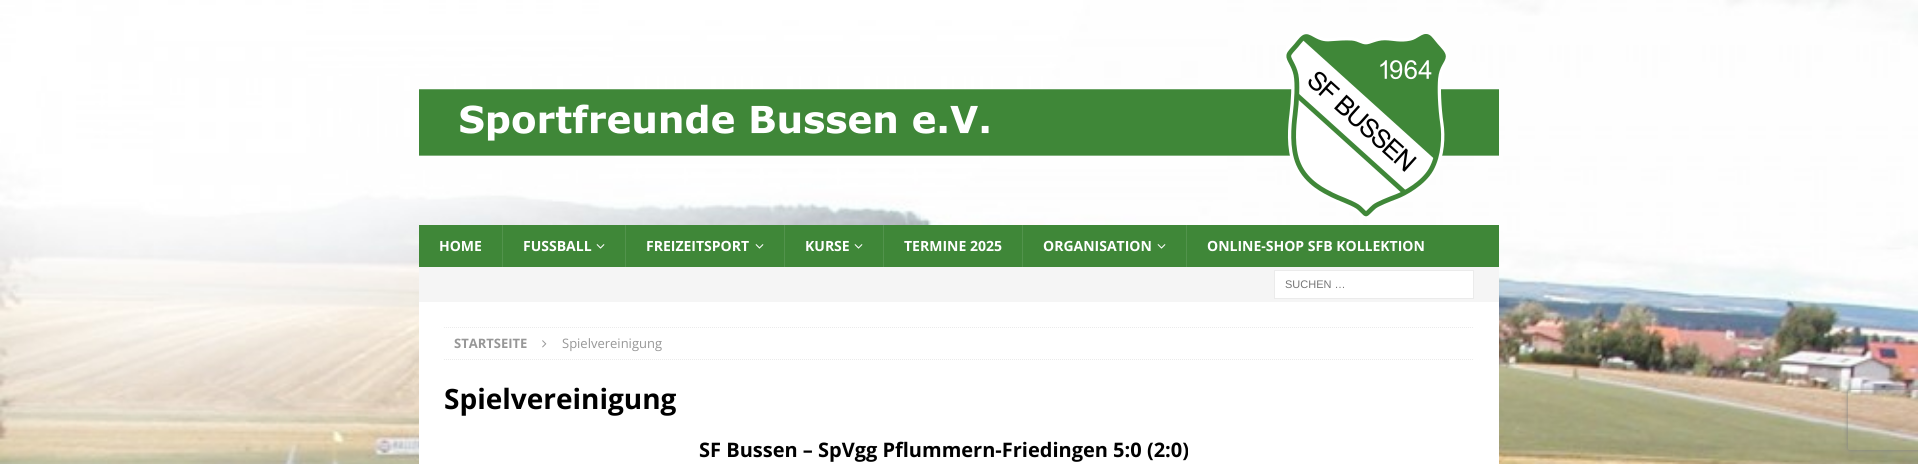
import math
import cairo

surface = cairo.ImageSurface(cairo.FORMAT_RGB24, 1918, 464)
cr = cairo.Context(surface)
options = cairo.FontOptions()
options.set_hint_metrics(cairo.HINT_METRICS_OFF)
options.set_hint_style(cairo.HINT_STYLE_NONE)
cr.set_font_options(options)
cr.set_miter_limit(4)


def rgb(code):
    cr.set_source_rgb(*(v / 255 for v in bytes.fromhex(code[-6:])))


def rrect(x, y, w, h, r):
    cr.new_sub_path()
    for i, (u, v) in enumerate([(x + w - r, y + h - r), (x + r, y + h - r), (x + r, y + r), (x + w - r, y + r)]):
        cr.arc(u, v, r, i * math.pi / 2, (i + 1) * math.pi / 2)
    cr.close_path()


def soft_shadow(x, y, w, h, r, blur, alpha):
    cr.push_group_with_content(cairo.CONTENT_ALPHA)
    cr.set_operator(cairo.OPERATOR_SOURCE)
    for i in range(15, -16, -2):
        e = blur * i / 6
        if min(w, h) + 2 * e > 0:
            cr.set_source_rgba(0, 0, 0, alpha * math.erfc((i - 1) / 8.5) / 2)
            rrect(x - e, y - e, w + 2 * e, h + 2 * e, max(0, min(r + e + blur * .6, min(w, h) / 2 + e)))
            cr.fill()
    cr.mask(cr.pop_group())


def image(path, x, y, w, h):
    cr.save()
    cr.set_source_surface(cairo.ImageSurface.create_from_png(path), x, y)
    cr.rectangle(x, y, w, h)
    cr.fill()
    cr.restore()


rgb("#ffffff")
cr.paint()
image("img/1.png", 0, 0, 1918, 464)
image("img/2.png", 419, 34, 1080, 183)
rgb("#3f8738")
cr.rectangle(419, 225, 1080, 42)
cr.fill()
rgb("#52934c")
cr.rectangle(502, 225, 1, 42)
cr.fill()
image("img/3.png", 596, 244, 9, 5)
cr.rectangle(625, 225, 1, 42)
cr.fill()
image("img/3.png", 755, 244, 9, 5)
cr.rectangle(784, 225, 1, 42)
cr.fill()
image("img/3.png", 854, 244, 9, 5)
cr.rectangle(883, 225, 1, 42)
cr.fill()
cr.rectangle(1022, 225, 1, 42)
cr.fill()
image("img/3.png", 1157, 244, 9, 5)
cr.rectangle(1186, 225, 1, 42)
cr.fill()
rgb("#f5f5f5")
cr.rectangle(419, 267, 1080, 35)
cr.fill()
rgb("#ffffff")
cr.rectangle(1274.5, 270.5, 199, 28)
cr.fill_preserve()
rgb("#ebebeb")
cr.set_line_width(1)
cr.stroke()
rgb("#ffffff")
cr.rectangle(419, 302, 1080, 162)
cr.fill()
cr.new_path()
cr.move_to(444, 327.5)
cr.line_to(1474, 327.5)
rgb("#ebebeb")
cr.set_dash([1, 1])
cr.stroke()
cr.new_path()
cr.move_to(444, 359.5)
cr.line_to(1474, 359.5)
cr.stroke()
image("img/4.png", 542, 340, 5, 8)
cr.save()
cr.set_fill_rule(cairo.FILL_RULE_EVEN_ODD)
cr.new_path()
cr.move_to(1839, 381)
cr.line_to(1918, 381)
cr.line_to(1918, 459)
cr.line_to(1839, 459)
cr.close_path()
cr.move_to(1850, 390)
cr.line_to(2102, 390)
cr.curve_to(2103, 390, 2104, 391, 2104, 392)
cr.line_to(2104, 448)
cr.curve_to(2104, 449, 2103, 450, 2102, 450)
cr.line_to(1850, 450)
cr.curve_to(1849, 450, 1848, 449, 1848, 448)
cr.line_to(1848, 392)
cr.curve_to(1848, 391, 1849, 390, 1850, 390)
cr.close_path()
cr.clip()
rgb("#808080")
soft_shadow(1848, 390, 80, 60, 2, 2.5, 1)
cr.restore()
cr.select_font_face("Open Sans", cairo.FONT_SLANT_NORMAL, cairo.FONT_WEIGHT_BOLD)
cr.set_font_size(14)
rgb("#ffffff")
for x, y, s in [
    (439, 251, "HOME"),
    (523, 251, "FUSSBALL"),
    (646, 251, "FREIZEITSPORT"),
    (805, 251, "KURSE"),
    (904, 251, "TERMINE 2025"),
    (1043, 251, "ORGANISATION"),
    (1207, 251, "ONLINE-SHOP SFB KOLLEKTION"),
]:
    cr.move_to(x, y)
    cr.show_text(s)
cr.select_font_face("Liberation Sans")
cr.set_font_size(11)
rgb("#757575")
cr.move_to(1285, 288)
cr.show_text("SUCHEN …")
cr.select_font_face("Open Sans", cairo.FONT_SLANT_NORMAL, cairo.FONT_WEIGHT_BOLD)
cr.set_font_size(13)
rgb("#979797")
cr.move_to(454, 348)
cr.show_text("STARTSEITE")
cr.select_font_face("Open Sans")
cr.move_to(562, 348)
cr.show_text("Spielvereinigung")
cr.select_font_face("Open Sans", cairo.FONT_SLANT_NORMAL, cairo.FONT_WEIGHT_BOLD)
cr.set_font_size(28)
rgb("#000000")
cr.move_to(444, 409)
cr.show_text("Spielvereinigung")
cr.set_font_size(20)
cr.move_to(699, 457)
cr.show_text("SF Bussen – SpVgg Pflummern-Friedingen 5:0 (2:0)")
surface.write_to_png("page.png")
